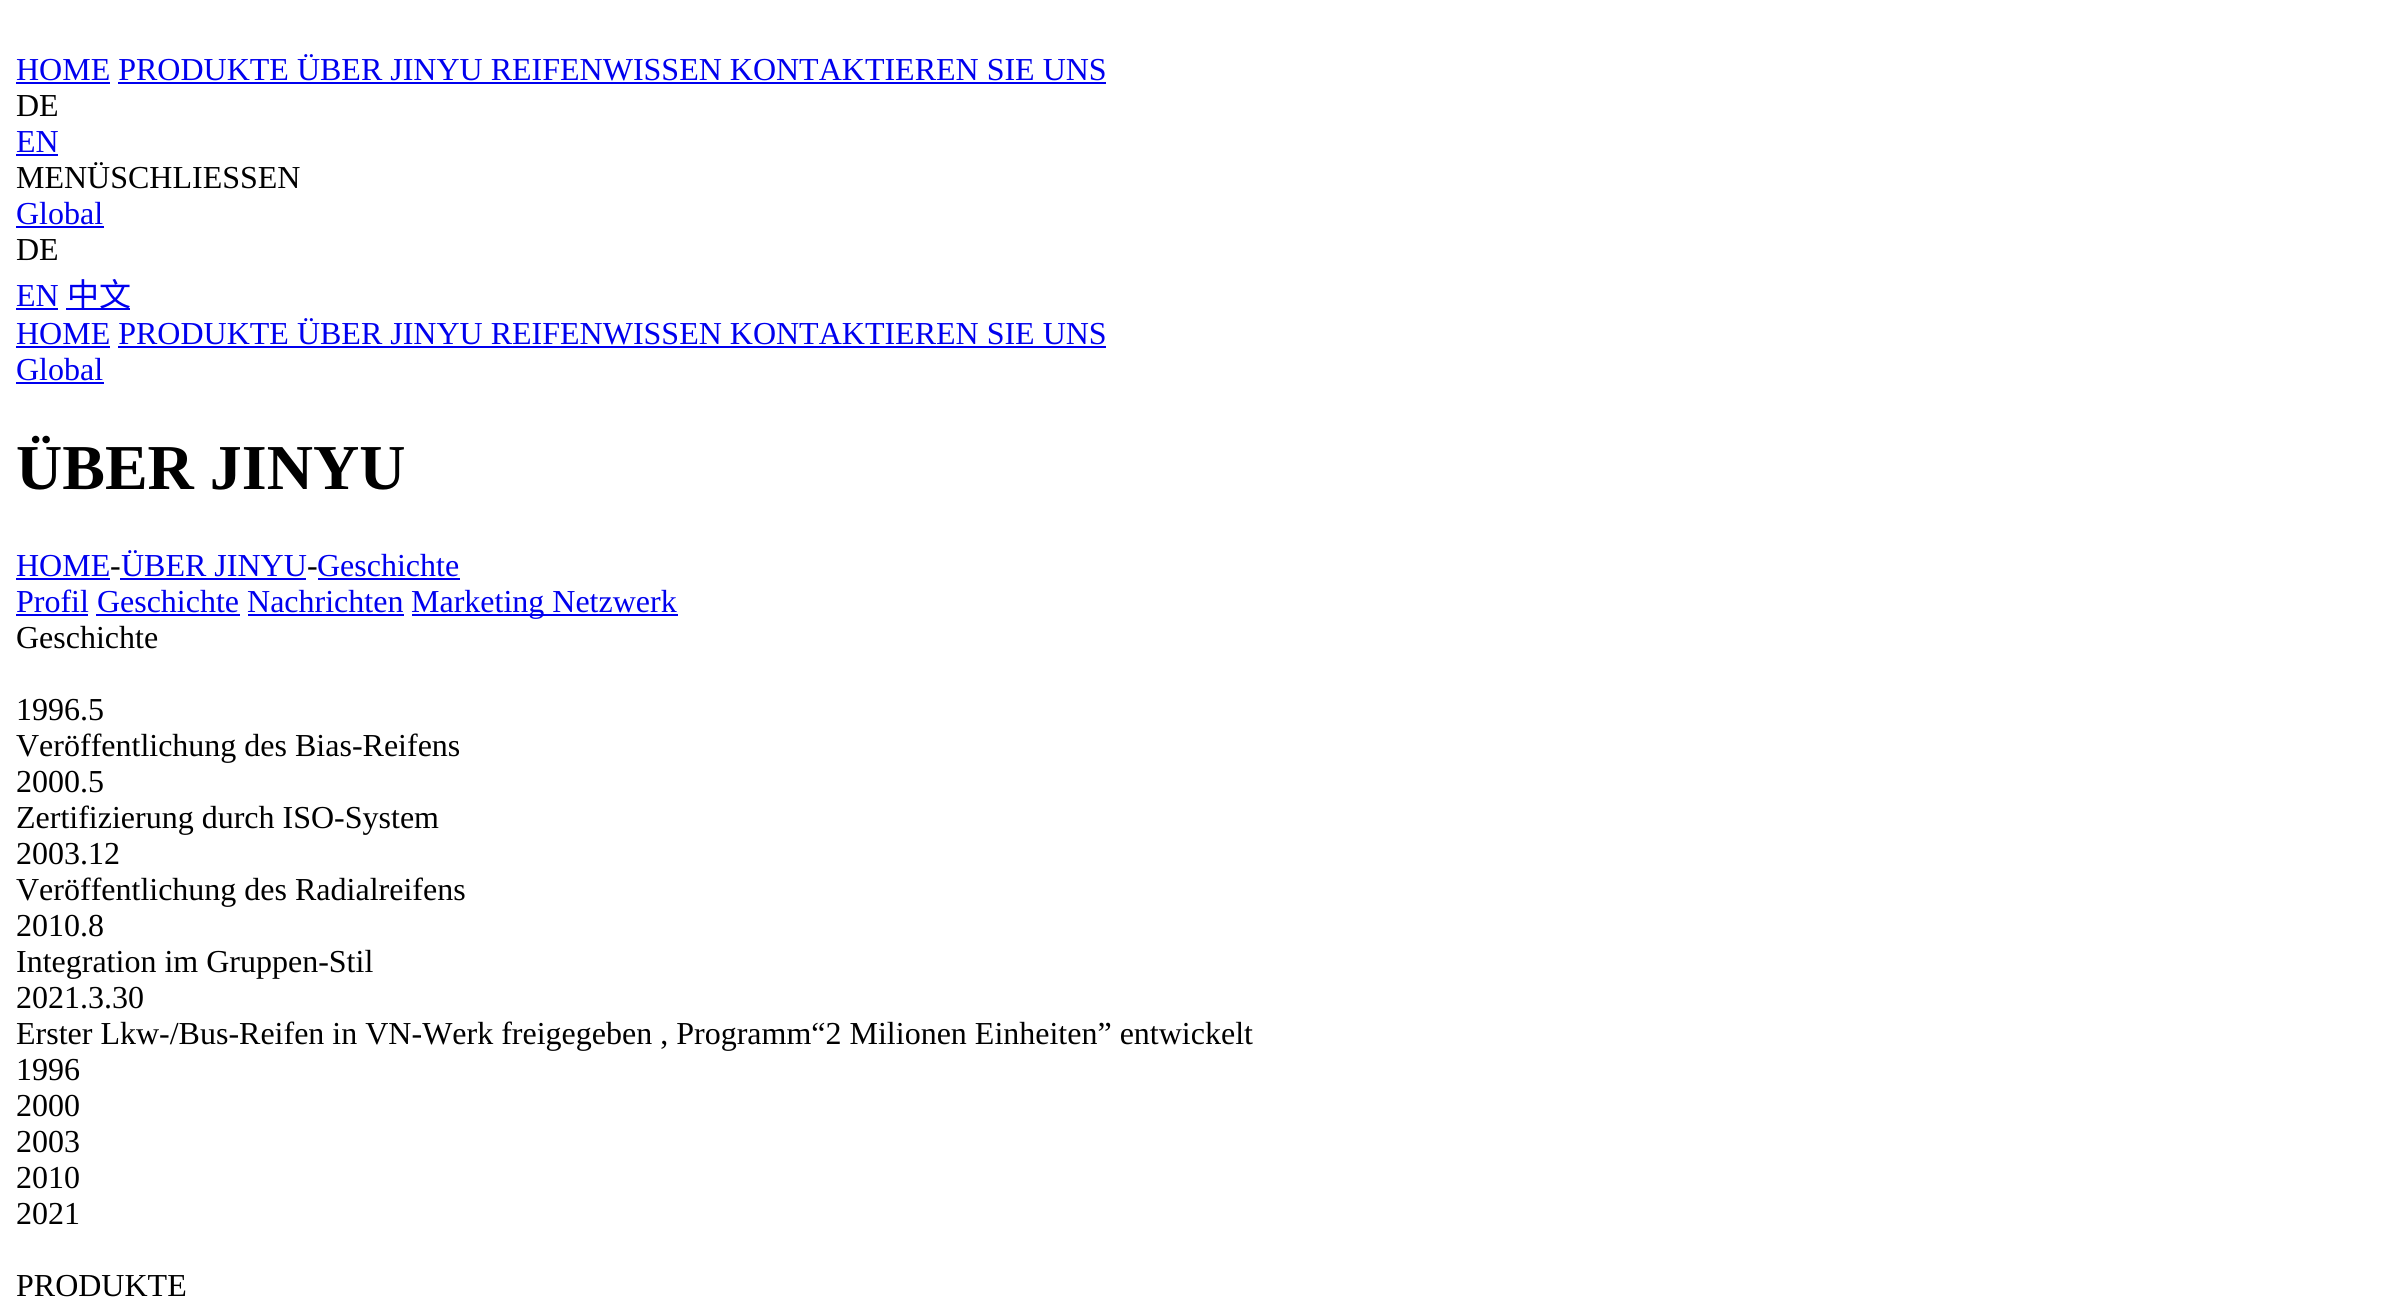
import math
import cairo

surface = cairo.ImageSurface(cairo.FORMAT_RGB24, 2406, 1311)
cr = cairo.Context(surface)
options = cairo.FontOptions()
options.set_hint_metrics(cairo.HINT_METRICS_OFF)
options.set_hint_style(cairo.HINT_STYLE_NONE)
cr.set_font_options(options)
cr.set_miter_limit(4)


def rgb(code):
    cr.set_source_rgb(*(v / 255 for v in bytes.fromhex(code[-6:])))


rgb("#ffffff")
cr.paint()
for x, y, w, h, color in [
    (16, 82, 94, 2, "#0000ee"),
    (118, 82, 988, 2, "#0000ee"),
    (16, 154, 42, 2, "#0000ee"),
    (16, 226, 88, 2, "#0000ee"),
    (16, 308, 42, 2, "#0000ee"),
    (66, 308, 64, 2, "#0000ee"),
    (16, 346, 94, 2, "#0000ee"),
    (118, 346, 988, 2, "#0000ee"),
    (16, 382, 88, 2, "#0000ee"),
    (16, 578, 94, 2, "#0000ee"),
    (120, 578, 186, 2, "#0000ee"),
    (318, 578, 142, 2, "#0000ee"),
    (16, 614, 72, 2, "#0000ee"),
    (412, 614, 266, 2, "#0000ee"),
    (96, 614, 144, 2, "#0000ee"),
    (248, 614, 156, 2, "#0000ee"),
]:
    rgb(color)
    cr.rectangle(x, y, w, h)
    cr.fill()
cr.select_font_face("Liberation Serif")
cr.set_font_size(32)
cr.move_to(16, 80)
cr.show_text("HOME PRODUKTE ÜBER JINYU REIFENWISSEN KONTAKTIEREN SIE UNS")
rgb("#000000")
cr.move_to(16, 116)
cr.show_text("DE")
rgb("#0000ee")
cr.move_to(16, 152)
cr.show_text("EN")
rgb("#000000")
cr.move_to(16, 188)
cr.show_text("MENÜSCHLIESSEN")
rgb("#0000ee")
cr.move_to(16, 224)
cr.show_text("Global")
rgb("#000000")
cr.move_to(16, 260)
cr.show_text("DE")
rgb("#0000ee")
cr.move_to(16, 306)
cr.show_text("EN")
cr.select_font_face("Noto Sans CJK SC")
cr.move_to(67, 306)
cr.show_text("中文")
cr.select_font_face("Liberation Serif")
cr.move_to(16, 344)
cr.show_text("HOME PRODUKTE ÜBER JINYU REIFENWISSEN KONTAKTIEREN SIE UNS")
cr.move_to(16, 380)
cr.show_text("Global")
cr.select_font_face("Liberation Serif", cairo.FONT_SLANT_NORMAL, cairo.FONT_WEIGHT_BOLD)
cr.set_font_size(64)
rgb("#000000")
cr.move_to(16, 489)
cr.show_text("ÜBER JINYU")
cr.select_font_face("Liberation Serif")
cr.set_font_size(32)
rgb("#0000ee")
cr.move_to(16, 576)
cr.show_text("HOME")
rgb("#000000")
cr.move_to(110, 576)
cr.show_text("-")
rgb("#0000ee")
cr.move_to(121, 576)
cr.show_text("ÜBER JINYU")
rgb("#000000")
cr.move_to(307, 576)
cr.show_text("-")
rgb("#0000ee")
for x, y, s in [
    (317, 576, "Geschichte"),
    (16, 612, "Profil Geschichte Nachrichten"),
    (411, 612, "Marketing Netzwerk"),
]:
    cr.move_to(x, y)
    cr.show_text(s)
rgb("#000000")
for x, y, s in [
    (16, 648, "Geschichte"),
    (16, 720, "1996.5"),
    (16, 756, "Veröffentlichung des Bias-Reifens"),
    (16, 792, "2000.5"),
    (16, 828, "Zertifizierung durch ISO-System"),
    (16, 864, "2003.12"),
    (16, 900, "Veröffentlichung des Radialreifens"),
    (16, 936, "2010.8"),
    (16, 972, "Integration im Gruppen-Stil"),
    (16, 1008, "2021.3.30"),
    (16, 1044, "Erster Lkw-/Bus-Reifen in VN-Werk freigegeben , Programm“2 Milionen Einheiten” entwickelt"),
    (16, 1080, "1996"),
    (16, 1116, "2000"),
    (16, 1152, "2003"),
    (16, 1188, "2010"),
    (16, 1224, "2021"),
    (16, 1296, "PRODUKTE"),
]:
    cr.move_to(x, y)
    cr.show_text(s)
surface.write_to_png("page.png")
